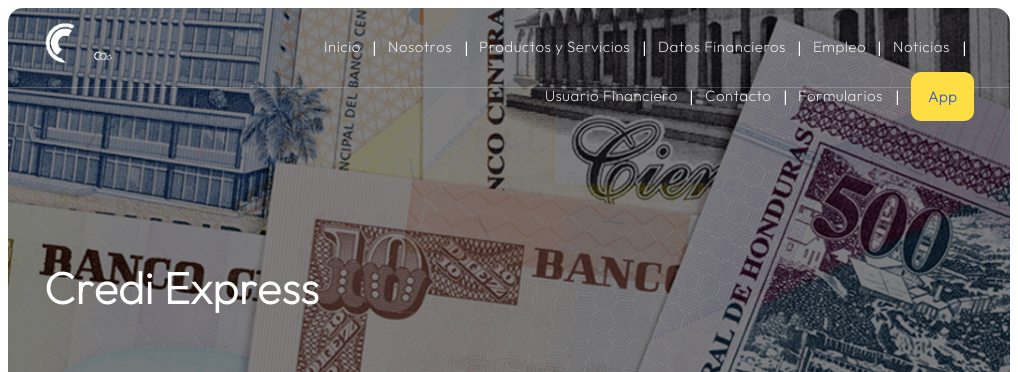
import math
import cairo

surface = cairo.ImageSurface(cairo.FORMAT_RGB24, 1018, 372)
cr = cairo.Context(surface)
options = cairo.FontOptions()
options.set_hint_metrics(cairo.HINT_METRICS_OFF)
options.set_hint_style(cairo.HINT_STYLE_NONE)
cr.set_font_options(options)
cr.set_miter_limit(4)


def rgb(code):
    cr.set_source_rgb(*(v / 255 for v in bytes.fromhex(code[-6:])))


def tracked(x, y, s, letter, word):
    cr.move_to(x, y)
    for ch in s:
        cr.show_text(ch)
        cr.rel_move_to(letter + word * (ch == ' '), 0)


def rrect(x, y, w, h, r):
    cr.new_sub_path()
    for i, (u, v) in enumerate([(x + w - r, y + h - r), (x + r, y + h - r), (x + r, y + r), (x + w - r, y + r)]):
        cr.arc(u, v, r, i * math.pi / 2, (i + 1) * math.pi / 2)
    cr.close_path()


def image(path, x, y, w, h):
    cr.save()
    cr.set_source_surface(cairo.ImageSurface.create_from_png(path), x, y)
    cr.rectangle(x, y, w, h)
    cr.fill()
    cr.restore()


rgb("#ffffff")
cr.paint()
image("img/2.png", 8, 8, 1002, 364)
cr.set_source_rgba(0.98, 0.98, 0.98, 0.2)
cr.rectangle(0, 87, 1018, 1)
cr.fill()
image("img/1.png", 45, 23, 71, 40)
rgb("#ffde44")
rrect(911, 72, 63, 49, 10)
cr.fill()
cr.select_font_face("Outfit Thin")
cr.set_font_size(15)
rgb("#ffffff")
tracked(324, 52, "Inicio", 0.5, 0)
cr.select_font_face("Outfit", cairo.FONT_SLANT_NORMAL, cairo.FONT_WEIGHT_BOLD)
cr.set_font_size(16)
cr.move_to(372, 54)
cr.show_text("|")
cr.select_font_face("Outfit Thin")
cr.set_font_size(15)
tracked(388, 52, "Nosotros", 0.5, 0)
cr.select_font_face("Outfit", cairo.FONT_SLANT_NORMAL, cairo.FONT_WEIGHT_BOLD)
cr.set_font_size(16)
cr.move_to(464, 54)
cr.show_text("|")
cr.select_font_face("Outfit Thin")
cr.set_font_size(15)
tracked(479, 52, "Productos y Servicios", 0.5, 0)
cr.select_font_face("Outfit", cairo.FONT_SLANT_NORMAL, cairo.FONT_WEIGHT_BOLD)
cr.set_font_size(16)
cr.move_to(642, 54)
cr.show_text("|")
cr.select_font_face("Outfit Thin")
cr.set_font_size(15)
tracked(658, 52, "Datos Financieros", 0.5, 0)
cr.select_font_face("Outfit", cairo.FONT_SLANT_NORMAL, cairo.FONT_WEIGHT_BOLD)
cr.set_font_size(16)
cr.move_to(797, 54)
cr.show_text("|")
cr.select_font_face("Outfit Thin")
cr.set_font_size(15)
tracked(813, 52, "Empleo", 0.5, 0)
cr.select_font_face("Outfit", cairo.FONT_SLANT_NORMAL, cairo.FONT_WEIGHT_BOLD)
cr.set_font_size(16)
cr.move_to(877, 54)
cr.show_text("|")
cr.select_font_face("Outfit Thin")
cr.set_font_size(15)
tracked(893, 52, "Noticias", 0.5, 0)
cr.select_font_face("Outfit", cairo.FONT_SLANT_NORMAL, cairo.FONT_WEIGHT_BOLD)
cr.set_font_size(16)
cr.move_to(962, 54)
cr.show_text("|")
cr.select_font_face("Outfit Thin")
cr.set_font_size(15)
tracked(545, 101, "Usuario Financiero", 0.5, 0)
cr.select_font_face("Outfit", cairo.FONT_SLANT_NORMAL, cairo.FONT_WEIGHT_BOLD)
cr.set_font_size(16)
cr.move_to(689, 103)
cr.show_text("|")
cr.select_font_face("Outfit Thin")
cr.set_font_size(15)
tracked(705, 101, "Contacto", 0.5, 0)
cr.select_font_face("Outfit", cairo.FONT_SLANT_NORMAL, cairo.FONT_WEIGHT_BOLD)
cr.set_font_size(16)
cr.move_to(783, 103)
cr.show_text("|")
cr.select_font_face("Outfit Thin")
cr.set_font_size(15)
tracked(798, 101, "Formularios", 0.5, 0)
cr.select_font_face("Outfit", cairo.FONT_SLANT_NORMAL, cairo.FONT_WEIGHT_BOLD)
cr.set_font_size(16)
cr.move_to(895, 103)
cr.show_text("|")
cr.set_font_size(15)
rgb("#4368be")
tracked(928, 102, "App", 0.5, 0)
cr.set_font_size(45)
rgb("#ffffff")
cr.move_to(44, 304)
cr.show_text("Credi Express")
surface.write_to_png("page.png")
